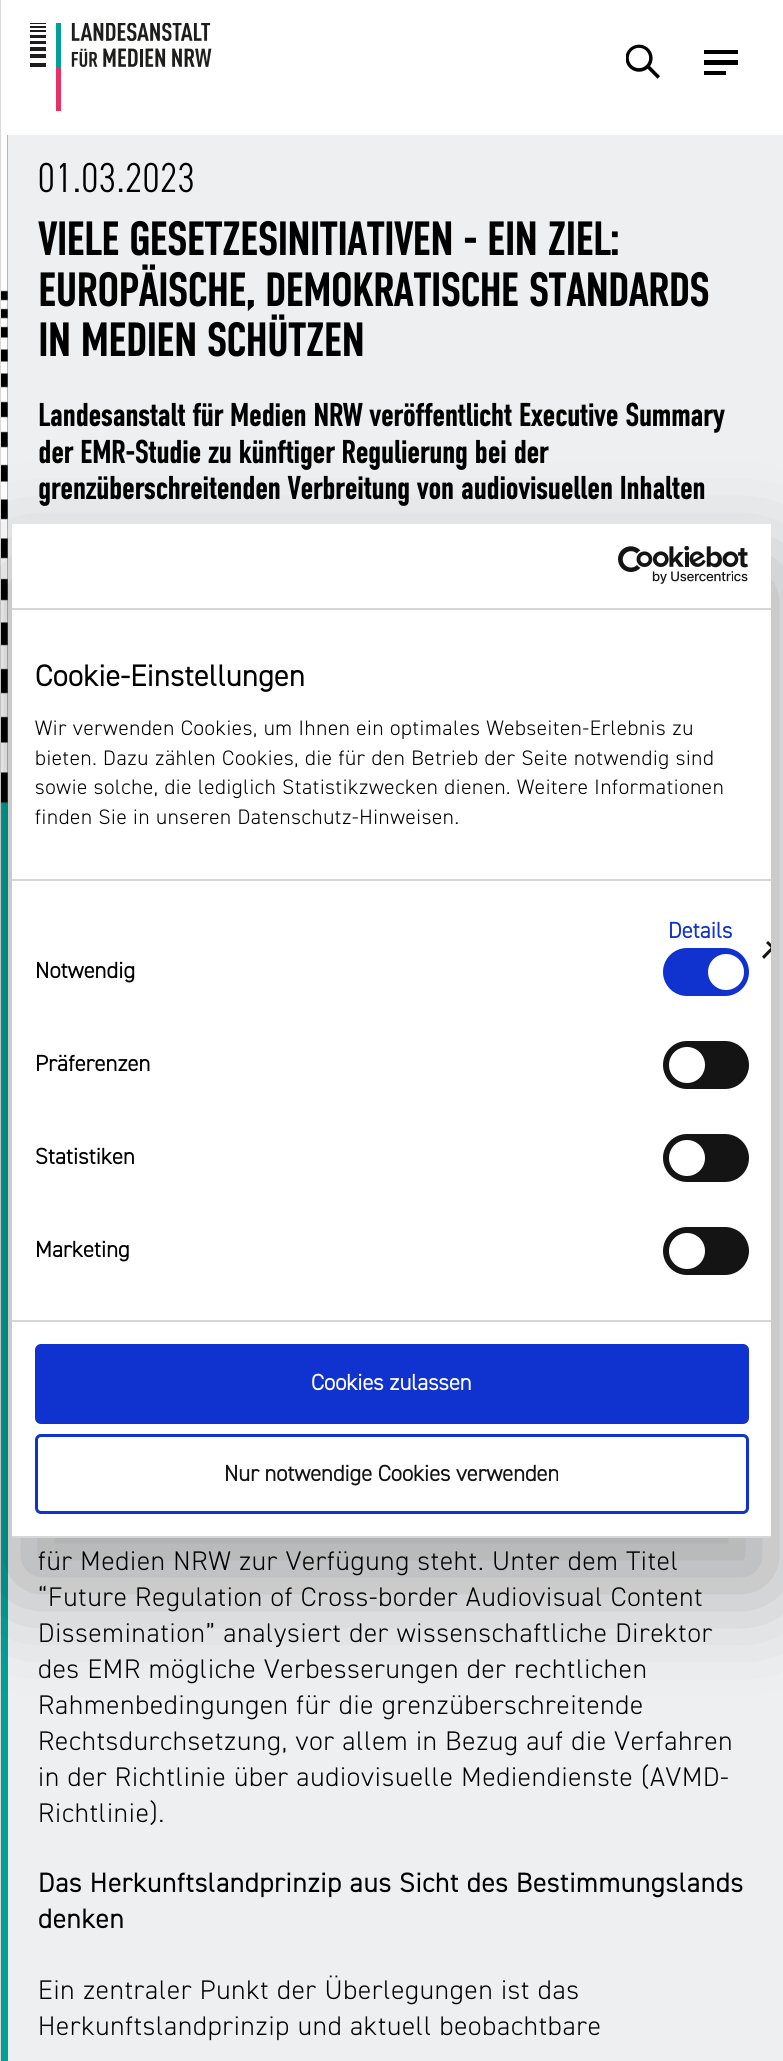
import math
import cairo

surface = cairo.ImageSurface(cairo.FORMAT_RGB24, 783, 2061)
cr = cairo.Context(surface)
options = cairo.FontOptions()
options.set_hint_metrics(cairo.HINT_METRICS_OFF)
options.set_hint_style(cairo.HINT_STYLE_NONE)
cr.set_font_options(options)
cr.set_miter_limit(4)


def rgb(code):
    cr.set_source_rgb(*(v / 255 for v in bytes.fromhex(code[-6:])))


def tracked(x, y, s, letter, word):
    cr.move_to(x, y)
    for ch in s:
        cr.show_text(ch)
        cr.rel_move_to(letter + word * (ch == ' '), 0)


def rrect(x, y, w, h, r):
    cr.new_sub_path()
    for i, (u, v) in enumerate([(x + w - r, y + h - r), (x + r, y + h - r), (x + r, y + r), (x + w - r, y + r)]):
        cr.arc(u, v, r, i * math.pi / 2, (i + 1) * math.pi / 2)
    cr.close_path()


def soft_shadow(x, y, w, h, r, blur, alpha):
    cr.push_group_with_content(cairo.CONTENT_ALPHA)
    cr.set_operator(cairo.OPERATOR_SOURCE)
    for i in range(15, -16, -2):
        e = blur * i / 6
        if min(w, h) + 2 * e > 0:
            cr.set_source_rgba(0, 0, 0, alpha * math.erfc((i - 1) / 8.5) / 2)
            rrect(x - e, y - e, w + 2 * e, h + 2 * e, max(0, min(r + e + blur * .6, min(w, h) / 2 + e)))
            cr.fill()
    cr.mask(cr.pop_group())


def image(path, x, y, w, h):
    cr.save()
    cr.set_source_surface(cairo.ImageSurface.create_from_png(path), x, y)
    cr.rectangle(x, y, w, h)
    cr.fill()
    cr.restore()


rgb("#eeeff0")
cr.paint()
rgb("#ffffff")
cr.rectangle(1, 0, 782, 135)
cr.fill()
rgb("#d9d9d9")
cr.rectangle(0, 0, 1, 2061)
cr.fill()
image("img/1.png", 30, 23, 182, 88)
image("img/2.png", 626, 44, 34, 35)
for x, y, w, h, color in [
    (704, 50, 34, 4, "#000000"),
    (704, 60, 34, 5, "#000000"),
    (704, 71, 22, 4, "#000000"),
    (1, 135, 7, 1926, "#00a096"),
]:
    rgb(color)
    cr.rectangle(x, y, w, h)
    cr.fill()
image("img/3.png", 1, 135, 7, 668)
rgb("#000000")
soft_shadow(12, 572, 759, 1014, 0, 51, 0.3)
rgb("#ffffff")
cr.rectangle(12, 524, 759, 1012)
cr.fill()
rgb("#d6d6d6")
cr.rectangle(12, 608, 759, 2)
cr.fill()
image("img/4.png", 618, 546, 130, 38)
cr.rectangle(12, 879, 759, 2)
cr.fill()
cr.save()
cr.rectangle(12, 609, 759, 713)
cr.clip()
rgb("#141414")
cr.new_path()
cr.move_to(768, 941)
cr.line_to(775, 947.5)
cr.line_to(773, 950)
cr.line_to(766, 943)
cr.close_path()
cr.fill()
cr.new_path()
cr.move_to(773, 945.5)
cr.line_to(775, 947.5)
cr.line_to(764, 959)
cr.line_to(762, 956.5)
cr.close_path()
cr.fill()
cr.restore()
cr.rectangle(12, 1320, 759, 2)
cr.fill()
rgb("#1032cf")
rrect(663, 948, 86, 48, 24)
cr.fill()
rgb("#ffffff")
cr.arc(726, 972, 18, 0, 2 * math.pi)
cr.fill()
rgb("#141414")
rrect(663, 1041, 86, 48, 24)
cr.fill()
rgb("#ffffff")
cr.arc(687, 1065, 18, 0, 2 * math.pi)
cr.fill()
rgb("#141414")
rrect(663, 1134, 86, 48, 24)
cr.fill()
rgb("#ffffff")
cr.arc(687, 1158, 18, 0, 2 * math.pi)
cr.fill()
rgb("#141414")
rrect(663, 1227, 86, 48, 24)
cr.fill()
rgb("#ffffff")
cr.arc(687, 1251, 18, 0, 2 * math.pi)
cr.fill()
rgb("#d6d6d6")
cr.rectangle(12, 1536, 759, 2)
cr.fill()
rgb("#1032cf")
rrect(36.5, 1345.5, 711, 77, 4.5)
cr.fill_preserve()
cr.set_line_width(3)
cr.stroke()
rrect(36.5, 1435.5, 711, 77, 4.5)
cr.stroke()
cr.select_font_face("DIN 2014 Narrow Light")
cr.set_font_size(42)
rgb("#000000")
tracked(38, 192, "01.03.2023", 0.75, 0)
cr.select_font_face("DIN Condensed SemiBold")
cr.set_font_size(48)
for x, y, s in [
    (38, 255, "VIELE GESETZESINITIATIVEN - EIN ZIEL:"),
    (38, 306, "EUROPÄISCHE, DEMOKRATISCHE STANDARDS"),
    (38, 356, "IN MEDIEN SCHÜTZEN"),
]:
    tracked(x, y, s, -0.95, 0)
cr.set_font_size(33)
for x, y, s in [
    (38, 426, "Landesanstalt für Medien NRW veröffentlicht Executive Summary"),
    (38, 463, "der EMR-Studie zu künftiger Regulierung bei der"),
    (38, 499, "grenzüberschreitenden Verbreitung von audiovisuellen Inhalten"),
]:
    tracked(x, y, s, -0.65, 0)
cr.select_font_face("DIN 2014 Light")
cr.set_font_size(27)
for x, y, s in [
    (38, 1570, "für Medien NRW zur Verfügung steht. Unter dem Titel"),
    (38, 1606, "“Future Regulation of Cross-border Audiovisual Content"),
    (38, 1642, "Dissemination” analysiert der wissenschaftliche Direktor"),
    (38, 1678, "des EMR mögliche Verbesserungen der rechtlichen"),
    (38, 1714, "Rahmenbedingungen für die grenzüberschreitende"),
    (38, 1750, "Rechtsdurchsetzung, vor allem in Bezug auf die Verfahren"),
    (38, 1786, "in der Richtlinie über audiovisuelle Mediendienste (AVMD-"),
    (38, 1822, "Richtlinie)."),
]:
    tracked(x, y, s, 0.8, 0)
cr.select_font_face("DIN 2014", cairo.FONT_SLANT_NORMAL, cairo.FONT_WEIGHT_BOLD)
tracked(38, 1892, "Das Herkunftslandprinzip aus Sicht des Bestimmungslands", 0.8, 0)
tracked(38, 1928, "denken", 0.8, 0)
cr.select_font_face("DIN 2014 Light")
tracked(38, 1999, "Ein zentraler Punkt der Überlegungen ist das", 0.8, 0)
tracked(38, 2035, "Herkunftslandprinzip und aktuell beobachtbare", 0.8, 0)
cr.select_font_face("DIN 2014", cairo.FONT_SLANT_NORMAL, cairo.FONT_WEIGHT_BOLD)
cr.set_font_size(30)
tracked(35, 686, "Cookie-Einstellungen", 0.4, 0)
cr.select_font_face("DIN 2014 Light")
cr.set_font_size(21)
for x, y, s in [
    (35, 735, "Wir verwenden Cookies, um Ihnen ein optimales Webseiten-Erlebnis zu"),
    (35, 765, "bieten. Dazu zählen Cookies, die für den Betrieb der Seite notwendig sind"),
    (35, 794, "sowie solche, die lediglich Statistikzwecken dienen. Weitere Informationen"),
    (35, 824, "finden Sie in unseren Datenschutz-Hinweisen."),
]:
    tracked(x, y, s, 0.63, 0)
cr.select_font_face("DIN 2014", cairo.FONT_SLANT_NORMAL, cairo.FONT_WEIGHT_BOLD)
cr.set_font_size(22.5)
rgb("#1032cf")
tracked(668, 938, "Details", 0.1, 0)
rgb("#000000")
for x, y, s in [
    (35, 978, "Notwendig"),
    (35, 1071, "Präferenzen"),
    (35, 1164, "Statistiken"),
    (35, 1257, "Marketing"),
]:
    tracked(x, y, s, 0.1, 0)
rgb("#ffffff")
cr.move_to(311, 1390)
cr.show_text("Cookies zulassen")
rgb("#141414")
cr.move_to(224, 1481)
cr.show_text("Nur notwendige Cookies verwenden")
surface.write_to_png("page.png")
